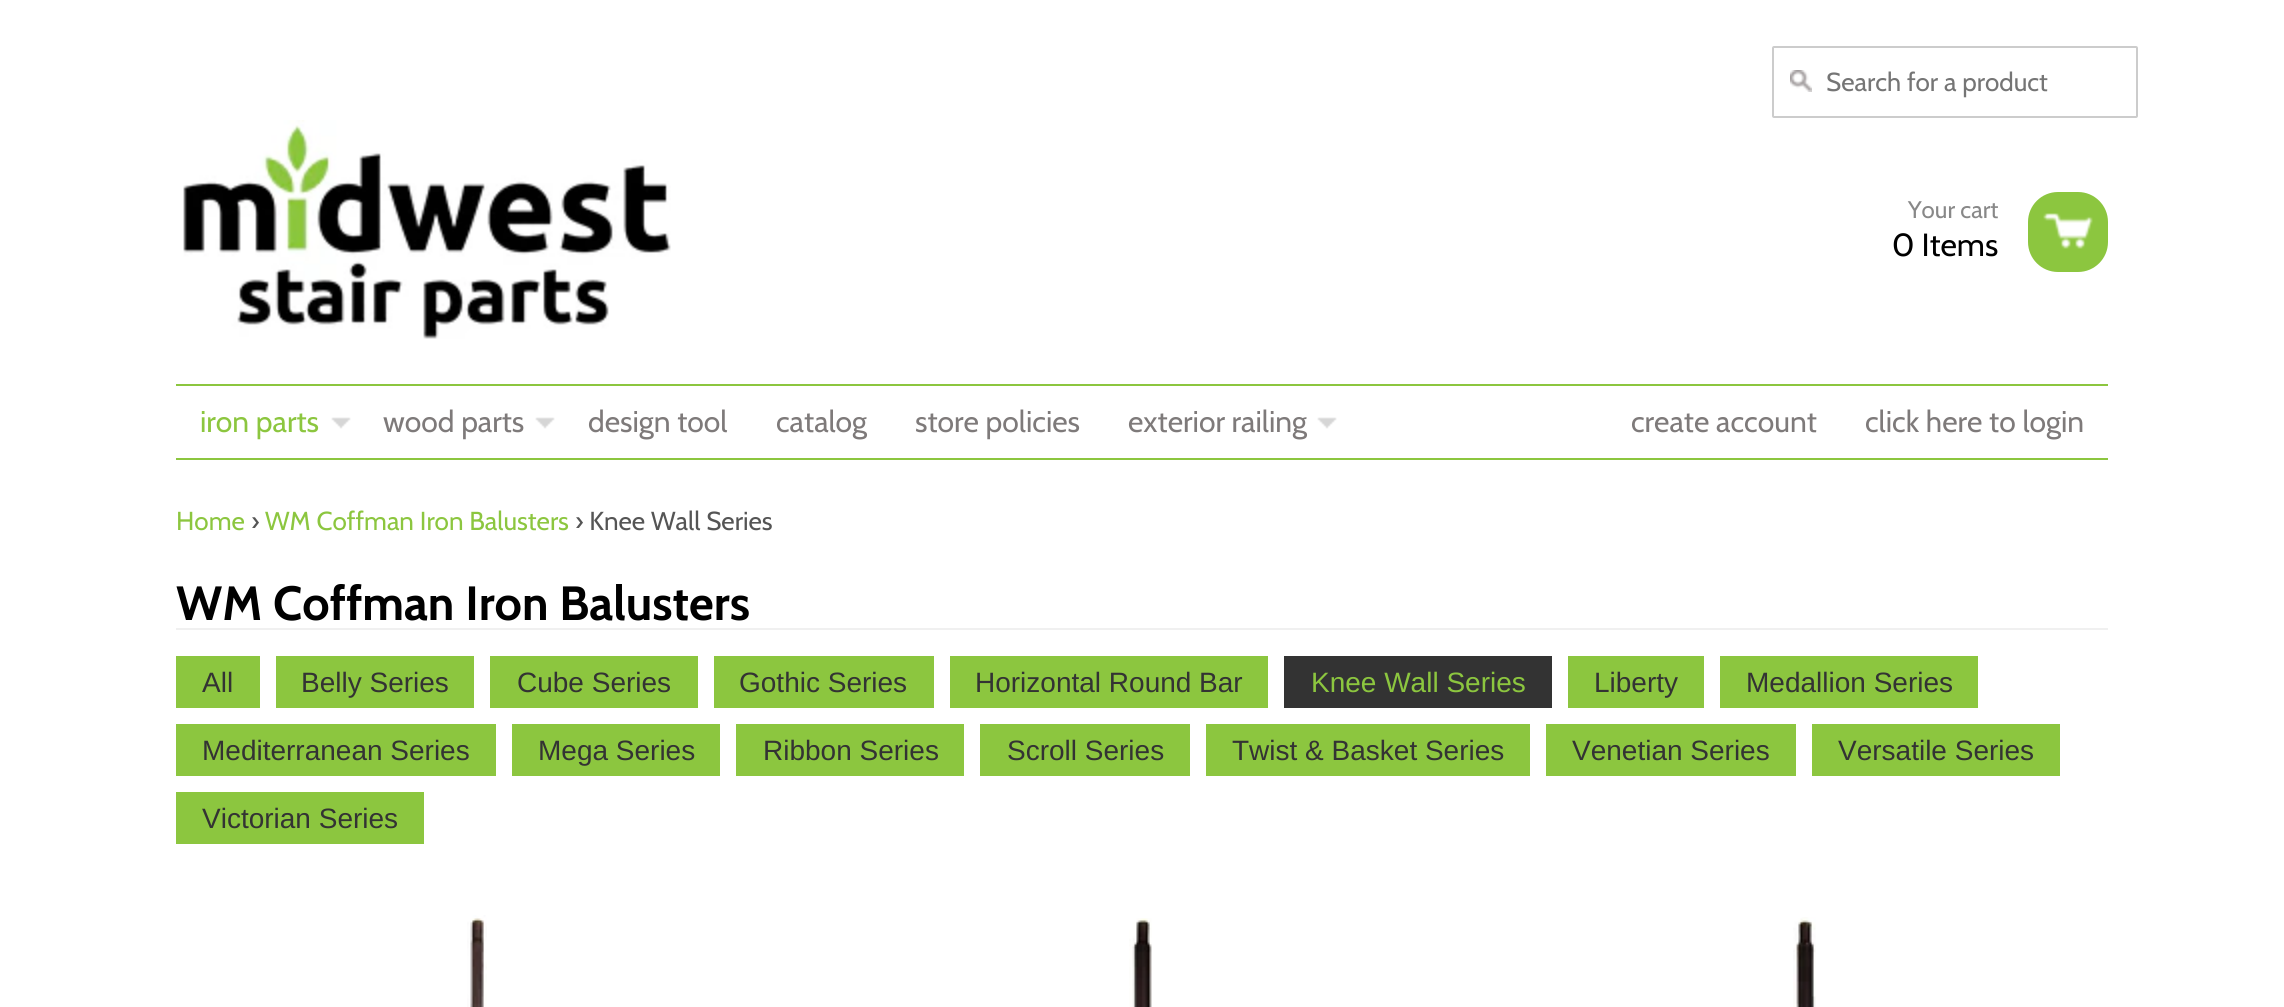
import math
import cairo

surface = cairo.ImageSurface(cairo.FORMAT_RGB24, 2284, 1007)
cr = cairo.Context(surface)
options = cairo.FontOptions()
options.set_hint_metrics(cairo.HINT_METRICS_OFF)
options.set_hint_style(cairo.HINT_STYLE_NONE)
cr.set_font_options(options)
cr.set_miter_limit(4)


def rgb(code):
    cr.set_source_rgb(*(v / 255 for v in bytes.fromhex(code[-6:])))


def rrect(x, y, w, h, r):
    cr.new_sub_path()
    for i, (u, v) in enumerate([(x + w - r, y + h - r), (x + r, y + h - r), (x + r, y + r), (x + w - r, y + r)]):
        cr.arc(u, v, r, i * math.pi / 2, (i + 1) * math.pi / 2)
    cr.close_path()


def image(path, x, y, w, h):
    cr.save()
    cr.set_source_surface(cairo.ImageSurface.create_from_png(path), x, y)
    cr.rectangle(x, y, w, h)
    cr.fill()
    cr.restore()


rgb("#ffffff")
cr.paint()
rrect(1773, 47, 364, 70, 1)
rgb("#cccccc")
cr.stroke()
image("img/1.png", 1790, 70, 22, 22)
image("img/2.png", 183, 120, 488, 219)
rgb("#8cc63f")
rrect(2028, 192, 80, 80, 30)
cr.fill()
image("img/3.png", 2043, 213, 50, 36)
cr.rectangle(176, 384, 1932, 2)
cr.fill()
cr.rectangle(176, 458, 1932, 2)
cr.fill()
image("img/4.png", 331, 417, 20, 12)
image("img/4.png", 535, 417, 20, 12)
image("img/4.png", 1317, 417, 20, 12)
for x, y, w, h, color in [
    (176, 628, 1932, 2, "#f0f0f0"),
    (176, 656, 84, 52, "#8cc63f"),
    (276, 656, 198, 52, "#8cc63f"),
    (490, 656, 208, 52, "#8cc63f"),
    (714, 656, 220, 52, "#8cc63f"),
    (950, 656, 318, 52, "#8cc63f"),
    (1284, 656, 268, 52, "#333333"),
    (1568, 656, 136, 52, "#8cc63f"),
    (1720, 656, 258, 52, "#8cc63f"),
    (176, 724, 320, 52, "#8cc63f"),
    (512, 724, 208, 52, "#8cc63f"),
    (736, 724, 228, 52, "#8cc63f"),
    (980, 724, 210, 52, "#8cc63f"),
    (1206, 724, 324, 52, "#8cc63f"),
    (1546, 724, 250, 52, "#8cc63f"),
    (1812, 724, 248, 52, "#8cc63f"),
    (176, 792, 248, 52, "#8cc63f"),
]:
    rgb(color)
    cr.rectangle(x, y, w, h)
    cr.fill()
image("img/5.png", 467, 915, 20, 92)
image("img/6.png", 1129, 918, 23, 89)
image("img/7.png", 1793, 917, 23, 90)
cr.select_font_face("Cabin")
cr.set_font_size(26)
rgb("#757575")
cr.move_to(1826, 91)
cr.show_text("Search for a product")
cr.set_font_size(24)
rgb("#888888")
cr.move_to(1908, 218)
cr.show_text("Your cart")
cr.set_font_size(32)
rgb("#000000")
cr.move_to(1892, 256)
cr.show_text("0 Items")
cr.set_font_size(30)
rgb("#8cc63f")
cr.move_to(200, 432)
cr.show_text("iron parts")
rgb("#7e7a7a")
for x, y, s in [
    (383, 432, "wood parts"),
    (588, 432, "design tool"),
    (776, 432, "catalog"),
    (915, 432, "store policies"),
    (1128, 432, "exterior railing"),
    (1631, 432, "create account"),
    (1865, 432, "click here to login"),
]:
    cr.move_to(x, y)
    cr.show_text(s)
cr.set_font_size(26)
rgb("#8cc63f")
cr.move_to(176, 530)
cr.show_text("Home")
rgb("#555555")
cr.move_to(251, 530)
cr.show_text("›")
rgb("#8cc63f")
cr.move_to(265, 530)
cr.show_text("WM Coffman Iron Balusters")
rgb("#555555")
cr.move_to(575, 530)
cr.show_text("› Knee Wall Series")
cr.select_font_face("Cabin", cairo.FONT_SLANT_NORMAL, cairo.FONT_WEIGHT_BOLD)
cr.set_font_size(48)
rgb("#000000")
cr.move_to(176, 620)
cr.show_text("WM Coffman Iron Balusters")
cr.select_font_face("Liberation Sans")
cr.set_font_size(28)
rgb("#333333")
for x, y, s in [
    (202, 692, "All"),
    (301, 692, "Belly Series"),
    (517, 692, "Cube Series"),
    (739, 692, "Gothic Series"),
    (975, 692, "Horizontal Round Bar"),
]:
    cr.move_to(x, y)
    cr.show_text(s)
rgb("#8cc63f")
cr.move_to(1311, 692)
cr.show_text("Knee Wall Series")
rgb("#333333")
for x, y, s in [
    (1594, 692, "Liberty"),
    (1746, 692, "Medallion Series"),
    (202, 760, "Mediterranean Series"),
    (538, 760, "Mega Series"),
    (763, 760, "Ribbon Series"),
    (1007, 760, "Scroll Series"),
    (1232, 760, "Twist & Basket Series"),
    (1572, 760, "Venetian Series"),
    (1838, 760, "Versatile Series"),
    (202, 828, "Victorian Series"),
]:
    cr.move_to(x, y)
    cr.show_text(s)
surface.write_to_png("page.png")
